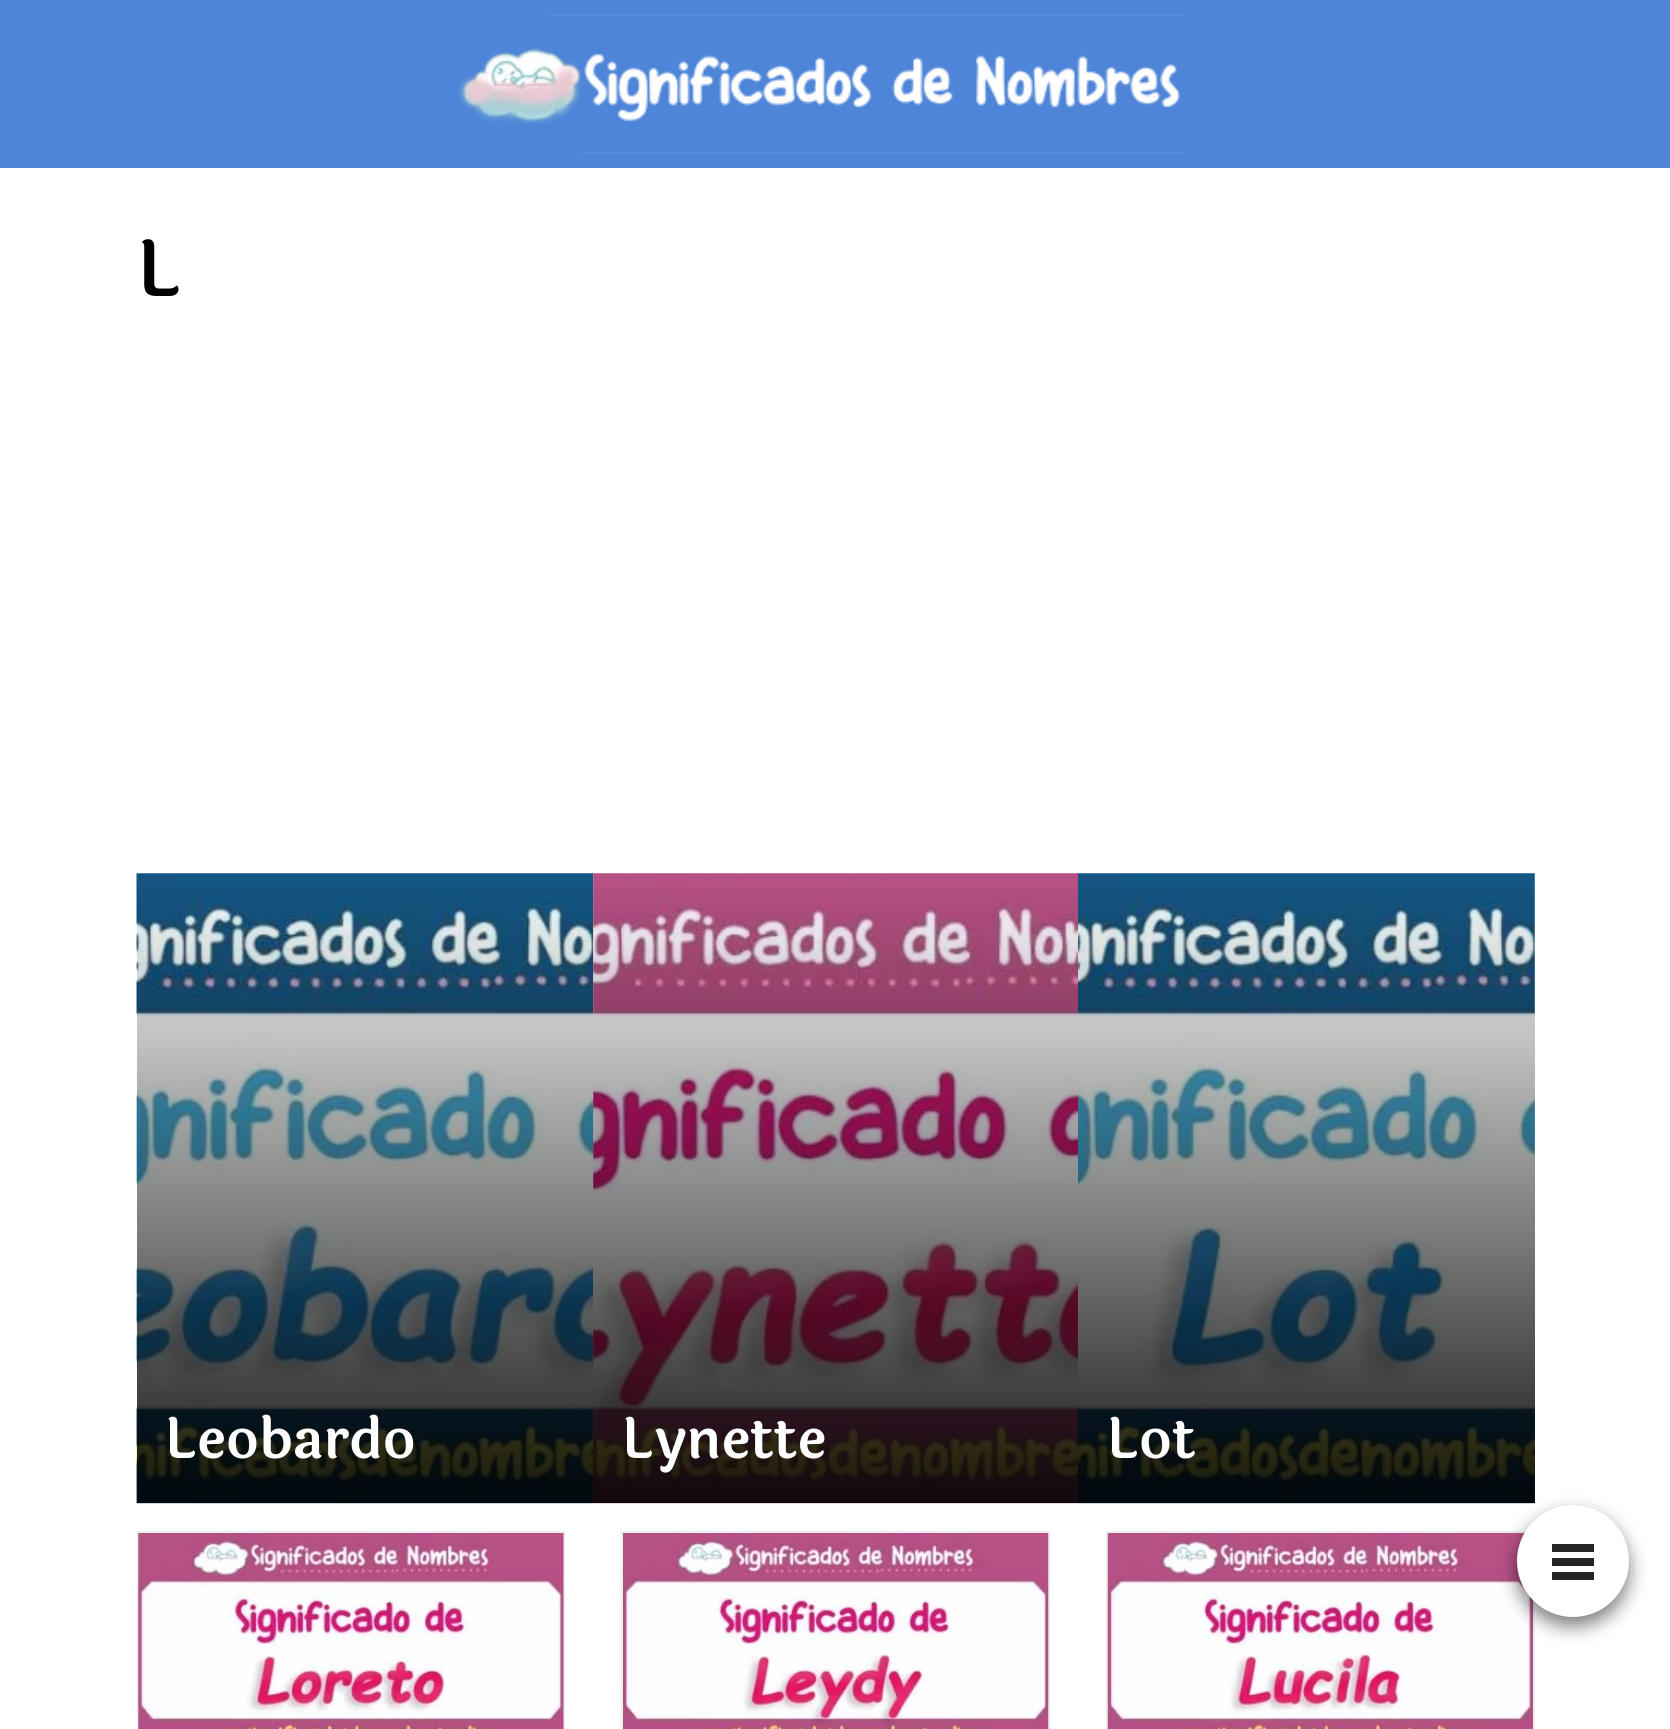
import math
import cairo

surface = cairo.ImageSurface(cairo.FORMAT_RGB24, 1670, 1729)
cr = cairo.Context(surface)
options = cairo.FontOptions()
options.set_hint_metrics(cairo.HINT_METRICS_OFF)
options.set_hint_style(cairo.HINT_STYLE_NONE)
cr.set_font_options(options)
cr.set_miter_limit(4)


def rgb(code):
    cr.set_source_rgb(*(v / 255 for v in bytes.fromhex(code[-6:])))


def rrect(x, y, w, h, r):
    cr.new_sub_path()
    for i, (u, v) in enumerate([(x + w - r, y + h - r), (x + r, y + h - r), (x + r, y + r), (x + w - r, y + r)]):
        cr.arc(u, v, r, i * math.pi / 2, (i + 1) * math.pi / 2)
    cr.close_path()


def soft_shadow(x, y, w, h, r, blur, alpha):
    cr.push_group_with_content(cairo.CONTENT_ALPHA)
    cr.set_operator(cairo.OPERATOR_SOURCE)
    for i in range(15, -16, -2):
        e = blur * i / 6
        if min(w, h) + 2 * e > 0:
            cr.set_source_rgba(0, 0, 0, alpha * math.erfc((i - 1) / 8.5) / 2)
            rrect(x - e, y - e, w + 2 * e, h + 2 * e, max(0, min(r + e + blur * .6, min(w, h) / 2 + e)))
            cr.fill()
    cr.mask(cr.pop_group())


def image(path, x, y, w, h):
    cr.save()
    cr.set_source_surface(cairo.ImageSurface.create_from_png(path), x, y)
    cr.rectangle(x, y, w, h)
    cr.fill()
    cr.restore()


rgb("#ffffff")
cr.paint()
rgb("#4e85d8")
cr.rectangle(0, 0, 1670, 168)
cr.fill()
image("img/1.png", 459, 14, 726, 140)
image("img/4.png", 1078, 873, 457, 631)
gradient = cairo.LinearGradient(1306, 873, 1306, 1503)
gradient.add_color_stop_rgba(0, 0, 0, 0, 0)
gradient.add_color_stop_rgba(1, 0, 0, 0, 0.9)
cr.set_source(gradient)
cr.rectangle(1078, 888, 457, 615)
cr.fill()
cr.rectangle(1107, 1532, 427, 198)
rgb("#eeeeee")
cr.stroke()
image("img/7.png", 1107, 1533, 426, 196)
rgb("#000000")
soft_shadow(1517, 1514, 112, 112, 56, 9, 0.5)
rgb("#ffffff")
cr.arc(1573, 1561, 56, 0, 2 * math.pi)
cr.fill()
for x, y, w, h, color in [
    (1552, 1558, 42, 8, "#252525"),
    (1552, 1544, 42, 8, "#252525"),
    (1552, 1572, 42, 8, "#252525"),
]:
    rgb(color)
    cr.rectangle(x, y, w, h)
    cr.fill()
image("img/2.png", 136, 873, 458, 631)
gradient = cairo.LinearGradient(365, 873, 365, 1503)
gradient.add_color_stop_rgba(0, 0, 0, 0, 0)
gradient.add_color_stop_rgba(1, 0, 0, 0, 0.9)
cr.set_source(gradient)
cr.rectangle(137, 888, 456, 615)
cr.fill()
image("img/3.png", 593, 873, 485, 631)
gradient = cairo.LinearGradient(836, 873, 836, 1503)
gradient.add_color_stop_rgba(0, 0, 0, 0, 0)
gradient.add_color_stop_rgba(1, 0, 0, 0, 0.9)
cr.set_source(gradient)
cr.rectangle(593, 888, 485, 615)
cr.fill()
cr.rectangle(138, 1532, 426, 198)
rgb("#eeeeee")
cr.stroke()
image("img/5.png", 138, 1533, 426, 196)
cr.rectangle(622, 1532, 427, 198)
cr.stroke()
image("img/6.png", 623, 1533, 426, 196)
cr.select_font_face("Laila SemiBold")
cr.set_font_size(77)
rgb("#000000")
cr.move_to(136, 296)
cr.show_text("L")
cr.set_font_size(56)
rgb("#ffffff")
for x, y, s in [
    (164, 1458, "Leobardo"),
    (621, 1458, "Lynette"),
    (1106, 1458, "Lot"),
]:
    cr.move_to(x, y)
    cr.show_text(s)
surface.write_to_png("page.png")
